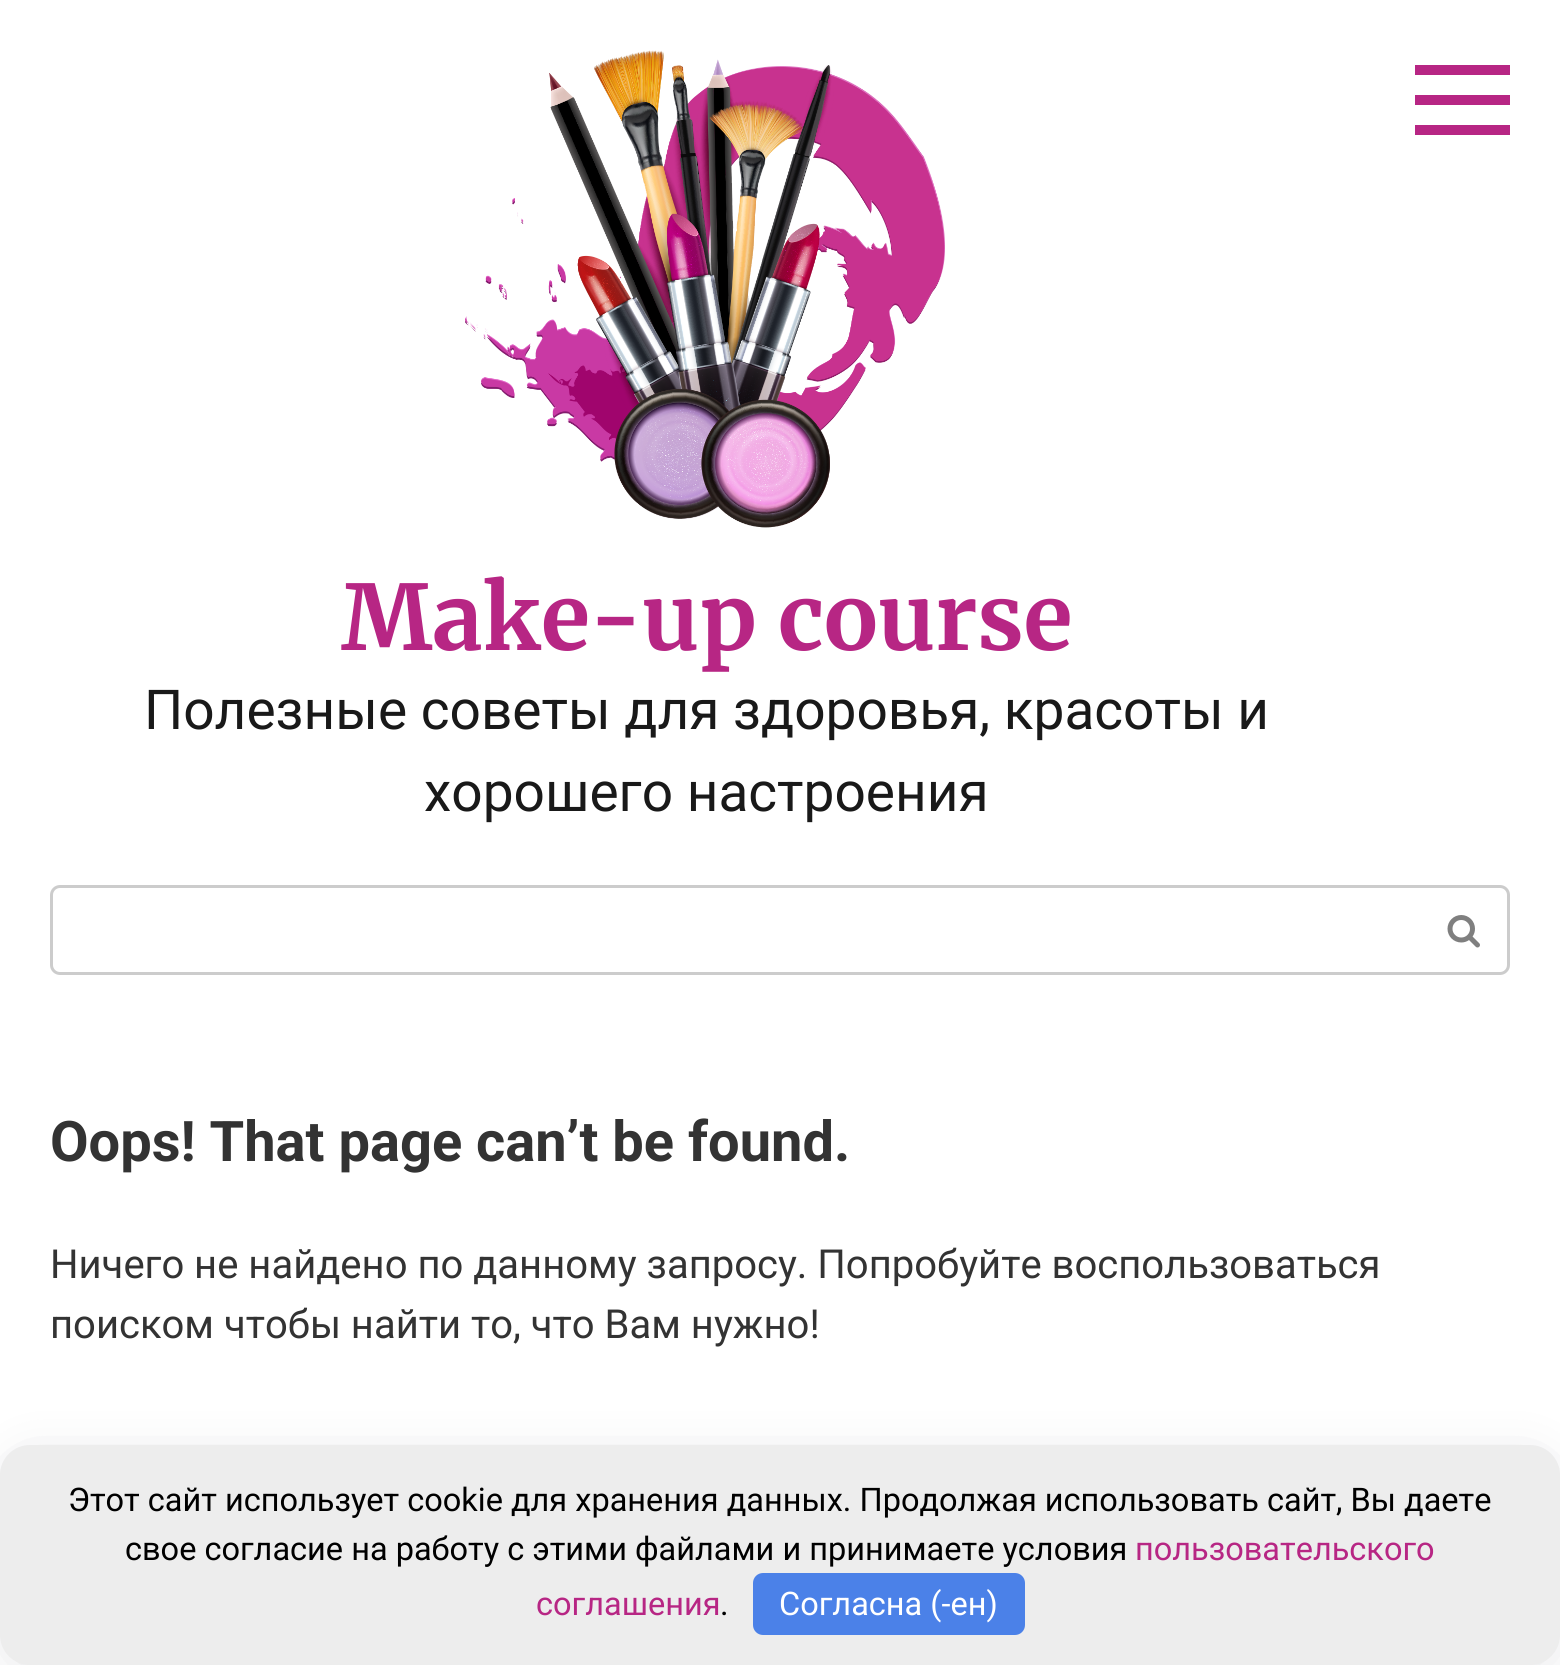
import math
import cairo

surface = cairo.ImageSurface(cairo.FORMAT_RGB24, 1560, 1665)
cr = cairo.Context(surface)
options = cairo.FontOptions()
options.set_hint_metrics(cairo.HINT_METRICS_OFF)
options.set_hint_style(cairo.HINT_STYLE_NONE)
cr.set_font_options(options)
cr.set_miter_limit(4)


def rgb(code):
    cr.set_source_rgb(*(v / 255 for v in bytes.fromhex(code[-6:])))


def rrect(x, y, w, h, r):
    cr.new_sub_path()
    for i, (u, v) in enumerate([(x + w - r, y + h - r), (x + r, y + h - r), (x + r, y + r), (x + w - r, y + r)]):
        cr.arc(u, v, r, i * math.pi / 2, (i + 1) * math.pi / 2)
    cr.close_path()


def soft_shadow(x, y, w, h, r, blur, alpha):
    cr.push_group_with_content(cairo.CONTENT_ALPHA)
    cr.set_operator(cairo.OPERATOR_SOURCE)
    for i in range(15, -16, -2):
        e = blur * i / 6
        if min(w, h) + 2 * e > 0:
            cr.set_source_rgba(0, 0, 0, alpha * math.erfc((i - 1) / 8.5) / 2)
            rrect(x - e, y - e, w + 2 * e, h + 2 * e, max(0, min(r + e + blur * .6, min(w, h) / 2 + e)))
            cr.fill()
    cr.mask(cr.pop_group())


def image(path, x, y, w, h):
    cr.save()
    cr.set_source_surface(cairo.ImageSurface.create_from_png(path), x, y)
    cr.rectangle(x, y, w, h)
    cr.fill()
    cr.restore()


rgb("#ffffff")
cr.paint()
for x, y, w, h, color in [
    (1415, 65, 95, 10, "#b72684"),
    (1415, 125, 95, 10, "#b72684"),
    (1415, 95, 95, 10, "#b72684"),
]:
    rgb(color)
    cr.rectangle(x, y, w, h)
    cr.fill()
image("img/1.png", 465, 50, 480, 478)
rrect(51.5, 886.5, 1457, 87, 8.5)
rgb("#cccccc")
cr.set_line_width(3)
cr.stroke()
image("img/2.png", 1447, 915, 33, 33)
rgb("#292c38")
soft_shadow(13, 1465, 1535, 195, 18, 25, 0.2)
rgb("#ededed")
rrect(0, 1445, 1560, 220, 30)
cr.fill()
rgb("#4b81e8")
rrect(753, 1573, 272, 62, 10)
cr.fill()
cr.select_font_face("Merriweather", cairo.FONT_SLANT_NORMAL, cairo.FONT_WEIGHT_BOLD)
cr.set_font_size(90)
rgb("#b72684")
cr.move_to(341, 650)
cr.show_text("Мake-up course")
cr.select_font_face("Roboto")
cr.set_font_size(55)
rgb("#191919")
cr.move_to(144, 729)
cr.show_text("Полезные советы для здоровья, красоты и")
cr.move_to(424, 811)
cr.show_text("хорошего настроения")
cr.select_font_face("Roboto", cairo.FONT_SLANT_NORMAL, cairo.FONT_WEIGHT_BOLD)
cr.set_font_size(56)
rgb("#333333")
cr.move_to(50, 1161)
cr.show_text("Oops! That page can’t be found.")
cr.select_font_face("Roboto")
cr.set_font_size(40)
cr.move_to(50, 1278)
cr.show_text("Ничего не найдено по данному запросу. Попробуйте воспользоваться")
cr.move_to(50, 1338)
cr.show_text("поиском чтобы найти то, что Вам нужно!")
cr.set_font_size(32.5)
rgb("#000000")
cr.move_to(68, 1511)
cr.show_text("Этот сайт использует cookie для хранения данных. Продолжая использовать сайт, Вы даете")
cr.move_to(125, 1560)
cr.show_text("свое согласие на работу с этими файлами и принимаете условия")
rgb("#b72684")
cr.move_to(1135, 1560)
cr.show_text("пользовательского")
cr.move_to(536, 1615)
cr.show_text("соглашения")
rgb("#000000")
cr.move_to(720, 1615)
cr.show_text(".")
rgb("#ffffff")
cr.move_to(779, 1615)
cr.show_text("Согласна (-ен)")
surface.write_to_png("page.png")
